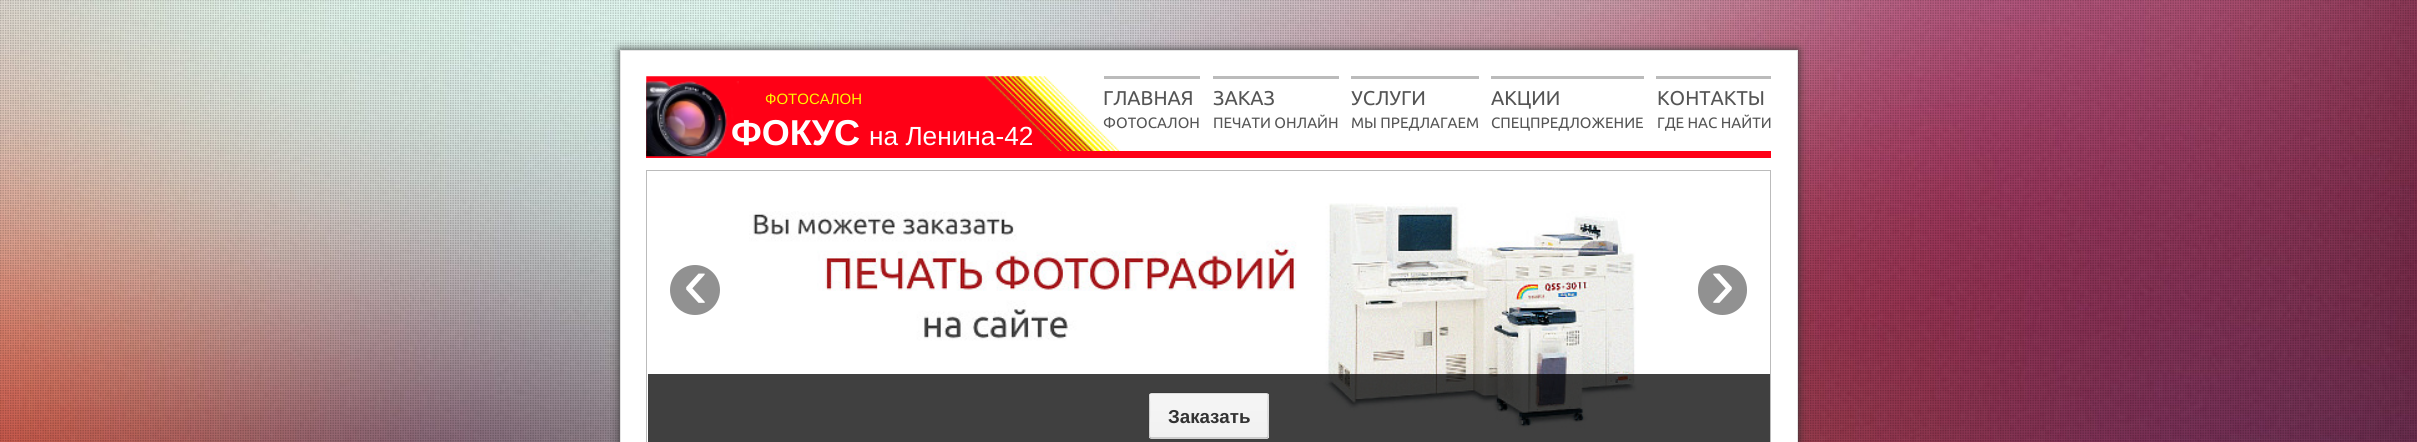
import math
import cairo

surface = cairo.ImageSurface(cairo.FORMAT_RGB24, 2417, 442)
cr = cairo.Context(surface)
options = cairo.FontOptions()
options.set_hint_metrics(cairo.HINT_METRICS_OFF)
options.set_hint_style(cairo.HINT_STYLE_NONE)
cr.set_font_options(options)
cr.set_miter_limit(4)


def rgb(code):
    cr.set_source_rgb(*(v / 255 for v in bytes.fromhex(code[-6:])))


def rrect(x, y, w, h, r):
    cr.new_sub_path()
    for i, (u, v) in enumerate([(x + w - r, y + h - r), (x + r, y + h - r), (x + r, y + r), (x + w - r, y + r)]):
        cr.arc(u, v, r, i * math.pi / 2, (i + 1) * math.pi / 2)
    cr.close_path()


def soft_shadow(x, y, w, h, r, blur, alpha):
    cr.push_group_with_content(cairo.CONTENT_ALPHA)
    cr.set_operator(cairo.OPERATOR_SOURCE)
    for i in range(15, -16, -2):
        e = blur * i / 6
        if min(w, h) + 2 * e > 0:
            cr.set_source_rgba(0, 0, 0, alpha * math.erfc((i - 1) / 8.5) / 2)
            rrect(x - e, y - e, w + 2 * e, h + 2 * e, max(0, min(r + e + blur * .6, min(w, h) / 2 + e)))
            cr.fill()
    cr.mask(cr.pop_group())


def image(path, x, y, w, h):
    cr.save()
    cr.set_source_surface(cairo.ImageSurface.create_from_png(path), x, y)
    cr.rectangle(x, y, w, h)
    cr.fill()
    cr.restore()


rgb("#ffffff")
cr.paint()
image("img/1.png", 0, 0, 2417, 442)
image("img/2.png", 0, 0, 2417, 442)
rgb("#333333")
soft_shadow(620, 50, 1178, 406, 0, 4.5, 1)
rgb("#ffffff")
cr.rectangle(620.5, 50.5, 1177, 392)
cr.fill_preserve()
rgb("#e5e5e5")
cr.set_line_width(1)
cr.stroke()
image("img/3.png", 646, 76, 481, 75)
rgb("#ff0016")
cr.rectangle(646, 151, 1125, 7)
cr.fill()
image("img/4.png", 646, 81, 93, 76)
for x, y, w, h, color in [
    (1104, 76, 96, 3, "#bbbbbb"),
    (1213, 76, 126, 3, "#bbbbbb"),
    (1351, 76, 128, 3, "#bbbbbb"),
    (1491, 76, 153, 3, "#bbbbbb"),
    (1656, 76, 115, 3, "#bbbbbb"),
]:
    rgb(color)
    cr.rectangle(x, y, w, h)
    cr.fill()
cr.rectangle(646.5, 170.5, 1124, 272)
cr.stroke()
rgb("#919191")
cr.arc(695, 290, 27, 0, 2 * math.pi)
cr.fill_preserve()
rgb("#ffffff")
cr.set_line_width(4)
cr.stroke()
rgb("#919191")
rrect(1696, 263, 53, 54, 26.5)
cr.fill_preserve()
rgb("#ffffff")
cr.stroke()
image("img/5.png", 749, 203, 888, 227)
cr.set_source_rgba(0, 0, 0, 0.75)
cr.rectangle(648, 374, 1122, 68)
cr.fill()
rgb("#f3f3f3")
rrect(1149, 393, 120, 46, 2.5)
cr.fill()
cr.save()
rrect(1149, 393, 120, 46, 2.5)
cr.clip()
gradient = cairo.LinearGradient(1209, 394, 1209, 438)
gradient.add_color_stop_rgba(0, 0.961, 0.961, 0.961, 1)
gradient.add_color_stop_rgba(1, 0.945, 0.945, 0.945, 1)
cr.set_source(gradient)
cr.rectangle(1149, 394, 120, 44)
cr.fill()
cr.restore()
cr.new_path()
cr.move_to(1267.5, 437.5)
cr.line_to(1266, 438)
cr.line_to(1151, 438)
cr.line_to(1150, 437.5)
cr.set_source_rgba(0, 0, 0, 0.25)
cr.set_line_width(1.2)
cr.stroke()
cr.new_path()
cr.move_to(1150, 437.5)
cr.curve_to(1148.5, 436, 1149.5, 418.5, 1149.5, 415.5)
cr.line_to(1149.5, 402)
cr.curve_to(1149.5, 398.5, 1148, 393, 1151, 393)
cr.line_to(1266, 393)
cr.curve_to(1269.5, 393, 1268, 398.5, 1268, 402)
cr.line_to(1268, 415.5)
cr.curve_to(1268, 418.5, 1269, 436, 1267.5, 437.5)
cr.set_source_rgba(0, 0, 0, 0.15)
cr.stroke()
cr.select_font_face("Liberation Sans")
cr.set_font_size(15)
rgb("#fff500")
cr.move_to(765, 104)
cr.show_text("ФОТОСАЛОН")
cr.select_font_face("Liberation Sans", cairo.FONT_SLANT_NORMAL, cairo.FONT_WEIGHT_BOLD)
cr.set_font_size(36)
rgb("#ffffff")
cr.move_to(731, 145)
cr.show_text("ФОКУС")
cr.select_font_face("Liberation Sans")
cr.set_font_size(26.25)
cr.move_to(869, 145)
cr.show_text("на Ленина-42")
cr.select_font_face("Ubuntu")
cr.set_font_size(20)
rgb("#555555")
cr.move_to(1103, 105)
cr.show_text("ГЛАВНАЯ")
cr.set_font_size(15)
cr.move_to(1103, 128)
cr.show_text("ФОТОСАЛОН")
cr.set_font_size(20)
cr.move_to(1213, 105)
cr.show_text("ЗАКАЗ")
cr.set_font_size(15)
cr.move_to(1213, 128)
cr.show_text("ПЕЧАТИ ОНЛАЙН")
cr.set_font_size(20)
cr.move_to(1351, 105)
cr.show_text("УСЛУГИ")
cr.set_font_size(15)
cr.move_to(1351, 128)
cr.show_text("МЫ ПРЕДЛАГАЕМ")
cr.set_font_size(20)
cr.move_to(1491, 105)
cr.show_text("АКЦИИ")
cr.set_font_size(15)
cr.move_to(1491, 128)
cr.show_text("СПЕЦПРЕДЛОЖЕНИЕ")
cr.set_font_size(20)
cr.move_to(1657, 105)
cr.show_text("КОНТАКТЫ")
cr.set_font_size(15)
cr.move_to(1657, 128)
cr.show_text("ГДЕ НАС НАЙТИ")
cr.select_font_face("Liberation Sans")
cr.set_font_size(75)
rgb("#ffffff")
cr.move_to(683, 308)
cr.show_text("‹")
cr.move_to(1710, 308)
cr.show_text("›")
cr.select_font_face("Liberation Sans", cairo.FONT_SLANT_NORMAL, cairo.FONT_WEIGHT_BOLD)
cr.set_font_size(18.75)
rgb("#333333")
cr.move_to(1168, 423)
cr.show_text("Заказать")
surface.write_to_png("page.png")
